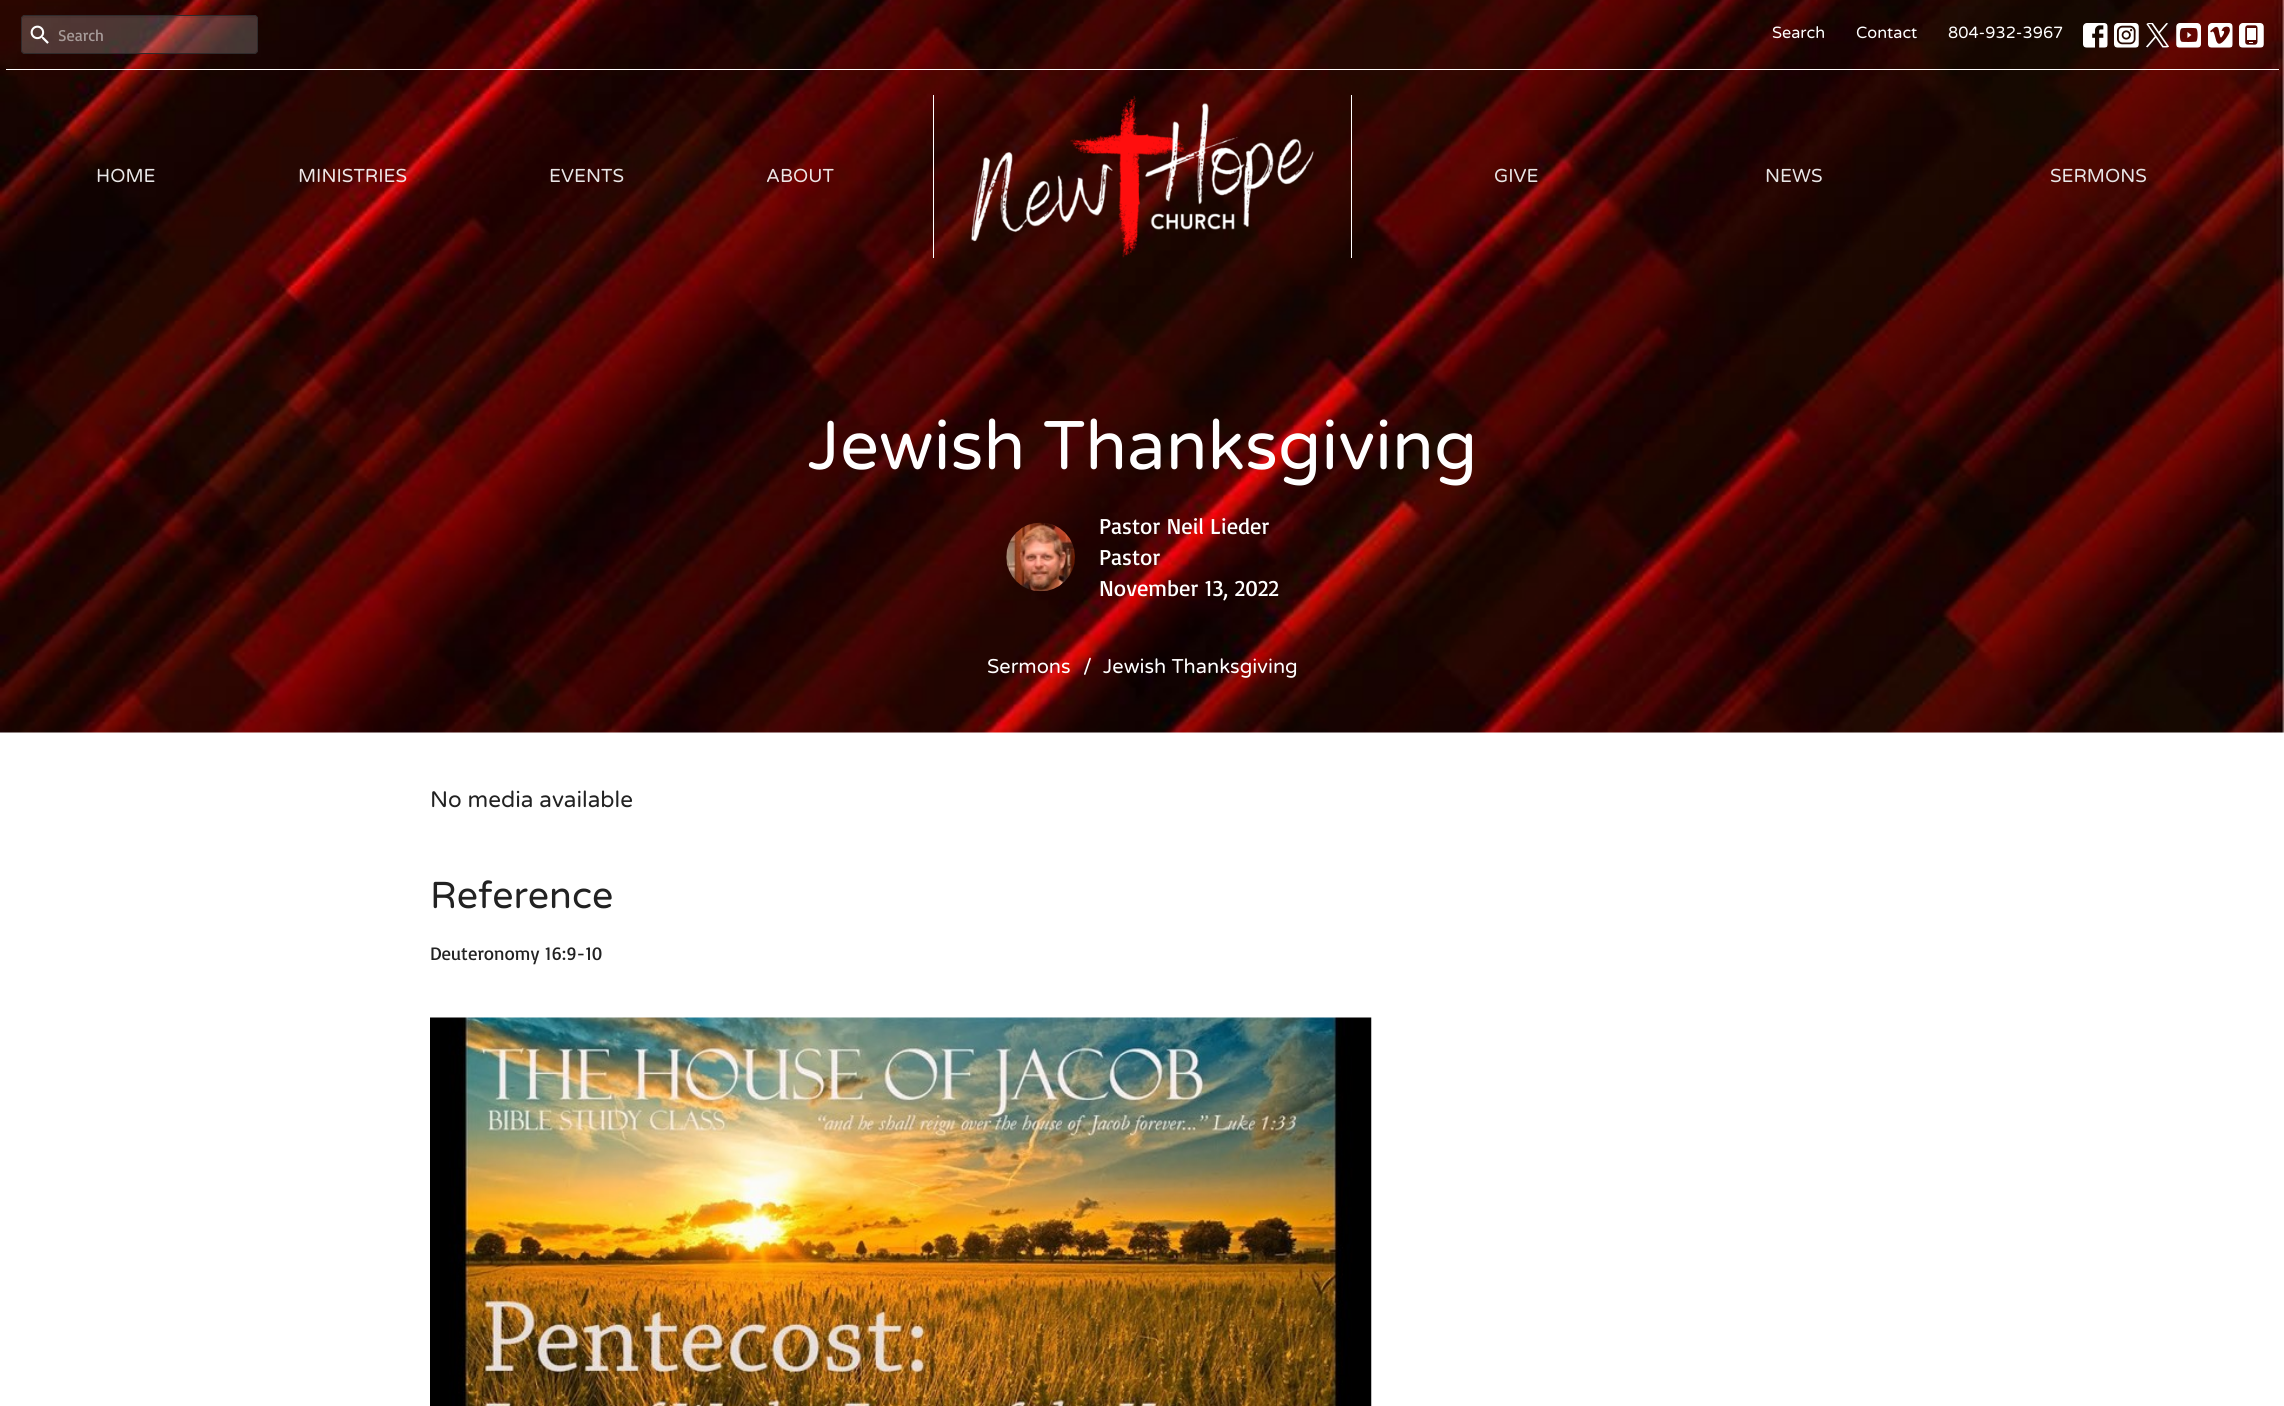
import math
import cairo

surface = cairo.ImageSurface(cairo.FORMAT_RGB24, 2284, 1406)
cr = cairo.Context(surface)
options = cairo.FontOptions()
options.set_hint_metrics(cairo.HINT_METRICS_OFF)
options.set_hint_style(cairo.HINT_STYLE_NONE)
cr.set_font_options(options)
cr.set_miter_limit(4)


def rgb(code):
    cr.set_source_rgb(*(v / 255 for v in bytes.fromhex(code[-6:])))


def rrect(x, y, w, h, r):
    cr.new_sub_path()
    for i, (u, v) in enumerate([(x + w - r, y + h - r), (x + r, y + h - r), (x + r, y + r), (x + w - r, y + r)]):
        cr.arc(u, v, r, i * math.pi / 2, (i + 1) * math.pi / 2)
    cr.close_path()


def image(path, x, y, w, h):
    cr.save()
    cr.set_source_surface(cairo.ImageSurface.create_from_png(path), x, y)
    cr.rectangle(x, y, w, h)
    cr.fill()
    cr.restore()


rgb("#ffffff")
cr.paint()
image("img/9.png", 0, 0, 2284, 733)
rgb("#ffffff")
cr.rectangle(6, 69, 2273, 1)
cr.fill()
cr.set_source_rgba(1, 1, 1, 0.2)
rrect(21, 15, 237, 39, 4)
cr.fill()
cr.set_source_rgba(0, 0, 0, 0.07)
cr.new_path()
cr.move_to(25, 18)
cr.line_to(254, 18)
cr.curve_to(255, 18, 256, 19, 256, 20)
cr.curve_to(256, 19, 256, 17, 254, 16)
cr.line_to(26, 16)
cr.curve_to(24, 16, 23, 17, 23, 19)
cr.close_path()
cr.fill()
rrect(21.5, 15.5, 236, 38, 3.5)
rgb("#2f2b2c")
cr.set_line_width(1)
cr.stroke()
image("img/1.png", 30, 25, 19, 19)
image("img/2.png", 2083, 23, 25, 25)
image("img/3.png", 2114, 23, 25, 25)
image("img/4.png", 2146, 23, 23, 25)
image("img/5.png", 2176, 23, 25, 25)
image("img/6.png", 2208, 23, 25, 25)
image("img/7.png", 2239, 23, 25, 25)
rgb("#ffffff")
cr.rectangle(1351, 95, 1, 163)
cr.fill()
cr.rectangle(933, 95, 1, 163)
cr.fill()
image("img/8.png", 971, 95, 343, 163)
image("img/10.png", 1006, 522, 69, 70)
image("img/11.png", 430, 1017, 942, 389)
cr.select_font_face("Basic")
cr.set_font_size(16.25)
rgb("#a79b99")
cr.move_to(58, 41)
cr.show_text("Search")
cr.select_font_face("Varela Round")
rgb("#ffffff")
for x, y, s in [
    (1772, 38, "Search"),
    (1856, 38, "Contact"),
    (1948, 38, "804-932-3967"),
]:
    cr.move_to(x, y)
    cr.show_text(s)
cr.set_font_size(18.75)
rgb("#e8e6e6")
cr.move_to(96, 182)
cr.show_text("HOME")
rgb("#eee6e6")
cr.move_to(298, 182)
cr.show_text("MINISTRIES")
rgb("#e8e6e6")
cr.move_to(549, 182)
cr.show_text("EVENTS")
rgb("#eee6e6")
cr.move_to(766, 182)
cr.show_text("ABOUT")
rgb("#e8e6e6")
for x, y, s in [
    (1494, 182, "GIVE"),
    (1765, 182, "NEWS"),
    (2050, 182, "SERMONS"),
]:
    cr.move_to(x, y)
    cr.show_text(s)
cr.set_font_size(68.75)
rgb("#ffffff")
cr.move_to(808, 469)
cr.show_text("Jewish Thanksgiving")
cr.select_font_face("Basic")
cr.set_font_size(22.5)
for x, y, s in [
    (1099, 534, "Pastor Neil Lieder"),
    (1099, 565, "Pastor"),
    (1099, 596, "November 13, 2022"),
]:
    cr.move_to(x, y)
    cr.show_text(s)
cr.select_font_face("Varela Round")
cr.set_font_size(20)
for x, y, s in [
    (987, 673, "Sermons"),
    (1083, 673, "/"),
    (1103, 673, "Jewish Thanksgiving"),
]:
    cr.move_to(x, y)
    cr.show_text(s)
cr.set_font_size(22.5)
rgb("#222222")
cr.move_to(430, 807)
cr.show_text("No media available")
cr.set_font_size(37.5)
cr.move_to(430, 908)
cr.show_text("Reference")
cr.select_font_face("Basic")
cr.set_font_size(18.75)
cr.move_to(430, 960)
cr.show_text("Deuteronomy 16:9-10")
surface.write_to_png("page.png")
